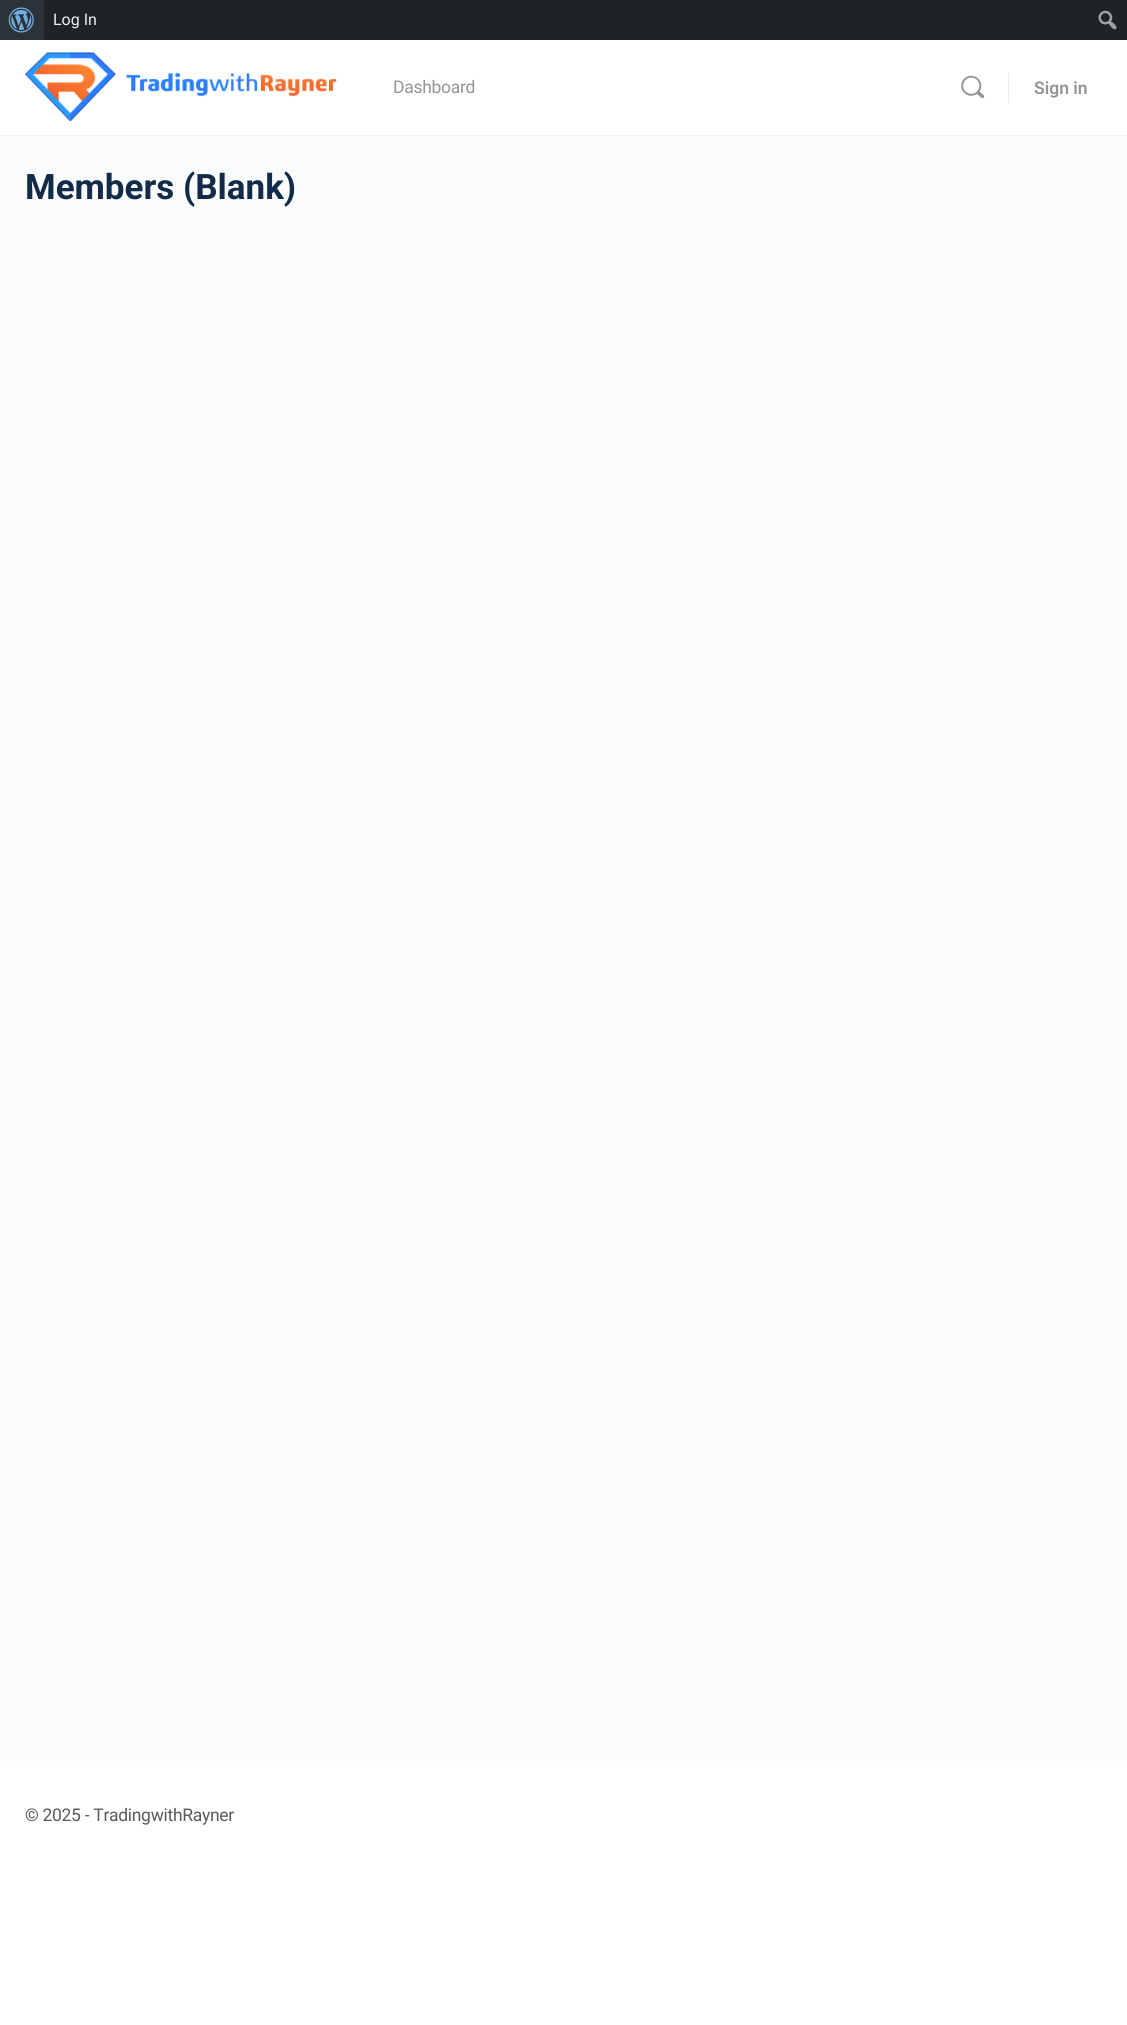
import math
import cairo

surface = cairo.ImageSurface(cairo.FORMAT_RGB24, 1127, 2025)
cr = cairo.Context(surface)
options = cairo.FontOptions()
options.set_hint_metrics(cairo.HINT_METRICS_OFF)
options.set_hint_style(cairo.HINT_STYLE_NONE)
cr.set_font_options(options)
cr.set_miter_limit(4)


def rgb(code):
    cr.set_source_rgb(*(v / 255 for v in bytes.fromhex(code[-6:])))


def tracked(x, y, s, letter, word):
    cr.move_to(x, y)
    for ch in s:
        cr.show_text(ch)
        cr.rel_move_to(letter + word * (ch == ' '), 0)


def image(path, x, y, w, h):
    cr.save()
    cr.set_source_surface(cairo.ImageSurface.create_from_png(path), x, y)
    cr.rectangle(x, y, w, h)
    cr.fill()
    cr.restore()


rgb("#fafbfd")
cr.paint()
rgb("#1d2327")
cr.rectangle(44, 0, 1083, 40)
cr.fill()
rgb("#2c3338")
cr.rectangle(0, 0, 44, 40)
cr.fill()
image("img/1.png", 8, 7, 26, 26)
image("img/2.png", 1098, 10, 19, 20)
rgb("#f2f3f6")
cr.new_path()
cr.move_to(0, 135)
cr.line_to(0, 136)
cr.line_to(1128, 136)
cr.line_to(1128, 41)
cr.line_to(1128, 135)
cr.close_path()
cr.fill()
rgb("#ffffff")
cr.rectangle(0, 40, 1127, 95)
cr.fill()
image("img/3.png", 25, 52, 312, 70)
image("img/4.png", 961, 75, 24, 24)
rgb("#e9eaea")
cr.rectangle(1008, 73, 1, 30)
cr.fill()
rgb("#ffffff")
cr.rectangle(0, 1761, 1127, 264)
cr.fill()
cr.select_font_face("Roboto")
cr.set_font_size(16)
rgb("#f0f0f1")
cr.move_to(53, 25)
cr.show_text("Log In")
cr.set_font_size(17.5)
rgb("#939597")
tracked(393, 93, "Dashboard", -0.3, 0)
cr.select_font_face("Roboto SemiBold")
cr.move_to(1034, 94)
cr.show_text("Sign in")
cr.select_font_face("Roboto", cairo.FONT_SLANT_NORMAL, cairo.FONT_WEIGHT_BOLD)
cr.set_font_size(35)
rgb("#122b46")
cr.move_to(25, 199)
cr.show_text("Members (Blank)")
cr.select_font_face("Roboto")
cr.set_font_size(17.5)
rgb("#5a5a5a")
tracked(25, 1821, "© 2025 - TradingwithRayner", -0.3, 0)
surface.write_to_png("page.png")
